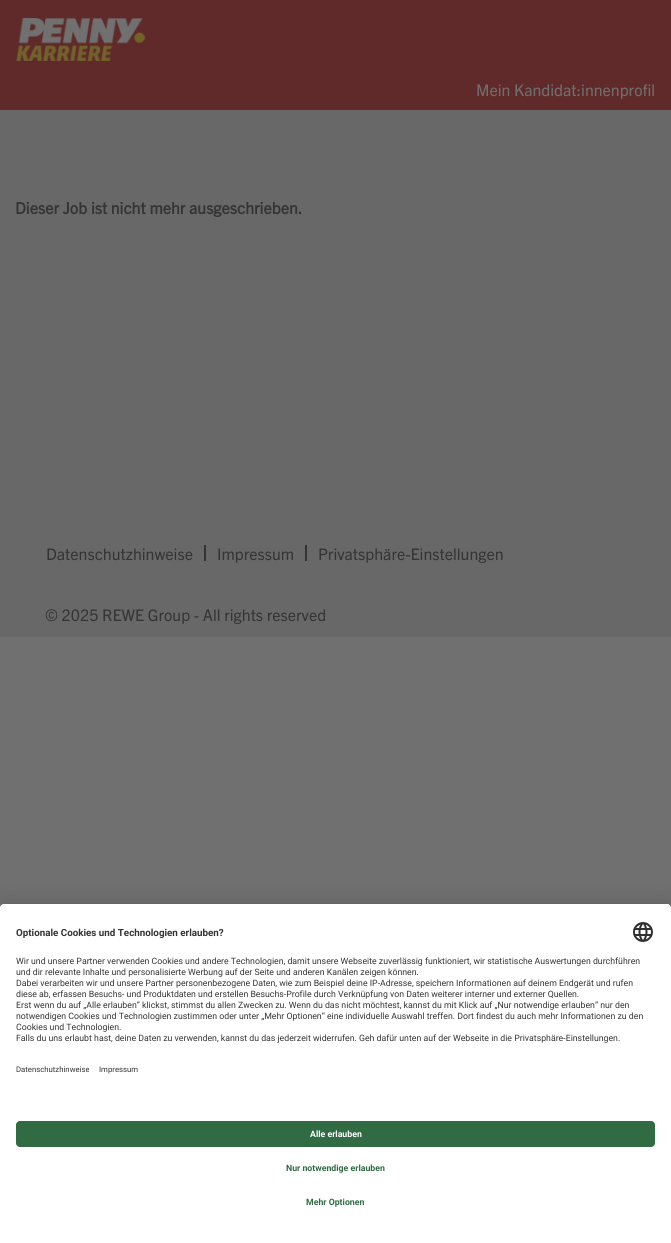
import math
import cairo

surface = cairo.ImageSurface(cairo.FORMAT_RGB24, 671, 1243)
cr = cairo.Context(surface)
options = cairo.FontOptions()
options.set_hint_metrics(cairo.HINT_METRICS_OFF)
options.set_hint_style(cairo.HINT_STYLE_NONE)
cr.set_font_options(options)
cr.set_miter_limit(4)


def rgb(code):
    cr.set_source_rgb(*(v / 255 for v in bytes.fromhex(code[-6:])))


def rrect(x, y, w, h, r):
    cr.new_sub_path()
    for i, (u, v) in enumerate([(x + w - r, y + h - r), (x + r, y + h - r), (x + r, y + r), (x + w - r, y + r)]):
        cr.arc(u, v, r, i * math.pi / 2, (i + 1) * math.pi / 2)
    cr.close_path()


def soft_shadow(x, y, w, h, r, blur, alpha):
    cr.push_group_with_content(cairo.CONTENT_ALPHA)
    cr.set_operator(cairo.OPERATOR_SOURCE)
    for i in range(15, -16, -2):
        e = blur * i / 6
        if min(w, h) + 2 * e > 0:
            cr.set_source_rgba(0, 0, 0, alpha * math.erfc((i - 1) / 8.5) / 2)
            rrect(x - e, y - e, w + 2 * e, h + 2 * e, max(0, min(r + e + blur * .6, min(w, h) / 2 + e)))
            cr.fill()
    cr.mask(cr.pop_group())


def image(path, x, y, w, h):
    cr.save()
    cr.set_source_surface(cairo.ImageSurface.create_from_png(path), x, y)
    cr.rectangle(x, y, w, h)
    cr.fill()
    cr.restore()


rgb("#707070")
cr.paint()
rgb("#612a2a")
cr.rectangle(0, 0, 671, 110)
cr.fill()
image("img/1.png", 16, 18, 130, 43)
for x, y, w, h, color in [
    (0, 110, 671, 527, "#686868"),
    (204, 545, 2, 16, "#343434"),
    (305, 545, 2, 16, "#343434"),
]:
    rgb(color)
    cr.rectangle(x, y, w, h)
    cr.fill()
rgb("#000000")
soft_shadow(0, 924, 671, 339, 4, 14, 0.3)
soft_shadow(0, 909, 671, 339, 4, 13, 0.22)
rgb("#ffffff")
cr.new_path()
cr.move_to(4, 904)
cr.line_to(667, 904)
cr.curve_to(669, 904, 671, 906, 671, 908)
cr.line_to(671, 1243)
cr.line_to(0, 1243)
cr.line_to(0, 908)
cr.curve_to(0, 906, 2, 904, 4, 904)
cr.close_path()
cr.fill()
cr.new_path()
cr.move_to(4, 904)
cr.line_to(667, 904)
cr.curve_to(669, 904, 671, 906, 671, 908)
cr.line_to(671, 1109)
cr.line_to(0, 1109)
cr.line_to(0, 908)
cr.curve_to(0, 906, 2, 904, 4, 904)
cr.close_path()
cr.fill()
image("img/2.png", 633, 922, 20, 20)
rgb("#306b44")
rrect(16, 1121, 639, 26, 4)
cr.fill()
cr.select_font_face("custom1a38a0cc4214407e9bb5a")
cr.set_font_size(16)
rgb("#707070")
cr.move_to(476, 96)
cr.show_text("Mein Kandidat:innenprofil")
cr.select_font_face("custom1a38a0cc4214407e9bb5a", cairo.FONT_SLANT_NORMAL, cairo.FONT_WEIGHT_BOLD)
rgb("#343434")
cr.move_to(15, 214)
cr.show_text("Dieser Job ist nicht mehr ausgeschrieben.")
cr.select_font_face("custom1a38a0cc4214407e9bb5a")
for x, y, s in [
    (46, 560, "Datenschutzhinweise"),
    (217, 560, "Impressum"),
    (318, 560, "Privatsphäre-Einstellungen"),
    (45, 621, "© 2025 REWE Group - All rights reserved"),
]:
    cr.move_to(x, y)
    cr.show_text(s)
cr.select_font_face("Roboto", cairo.FONT_SLANT_NORMAL, cairo.FONT_WEIGHT_BOLD)
cr.set_font_size(9.8)
cr.move_to(16, 936)
cr.show_text("Optionale Cookies und Technologien erlauben?")
cr.select_font_face("Roboto")
cr.set_font_size(8.75)
for x, y, s in [
    (16, 964, "Wir und unsere Partner verwenden Cookies und andere Technologien, damit unsere Webseite zuverlässig funktioniert, wir statistische Auswertungen durchführen"),
    (16, 975, "und dir relevante Inhalte und personalisierte Werbung auf der Seite und anderen Kanälen zeigen können."),
    (16, 986, "Dabei verarbeiten wir und unsere Partner personenbezogene Daten, wie zum Beispiel deine IP-Adresse, speichern Informationen auf deinem Endgerät und rufen"),
    (16, 997, "diese ab, erfassen Besuchs- und Produktdaten und erstellen Besuchs-Profile durch Verknüpfung von Daten weiterer interner und externer Quellen."),
    (16, 1008, "Erst wenn du auf „Alle erlauben” klickst, stimmst du allen Zwecken zu. Wenn du das nicht möchtest, kannst du mit Klick auf „Nur notwendige erlauben” nur den"),
    (16, 1019, "notwendigen Cookies und Technologien zustimmen oder unter „Mehr Optionen“ eine individuelle Auswahl treffen. Dort findest du auch mehr Informationen zu den"),
    (16, 1030, "Cookies und Technologien."),
    (16, 1041, "Falls du uns erlaubt hast, deine Daten zu verwenden, kannst du das jederzeit widerrufen. Geh dafür unten auf der Webseite in die Privatsphäre-Einstellungen."),
]:
    cr.move_to(x, y)
    cr.show_text(s)
cr.set_font_size(7.75)
cr.move_to(16, 1072)
cr.show_text("Datenschutzhinweise")
cr.move_to(99, 1072)
cr.show_text("Impressum")
cr.select_font_face("Roboto", cairo.FONT_SLANT_NORMAL, cairo.FONT_WEIGHT_BOLD)
cr.set_font_size(8.75)
rgb("#ffffff")
cr.move_to(310, 1137)
cr.show_text("Alle erlauben")
rgb("#306b44")
cr.move_to(286, 1171)
cr.show_text("Nur notwendige erlauben")
cr.move_to(306, 1205)
cr.show_text("Mehr Optionen")
surface.write_to_png("page.png")
